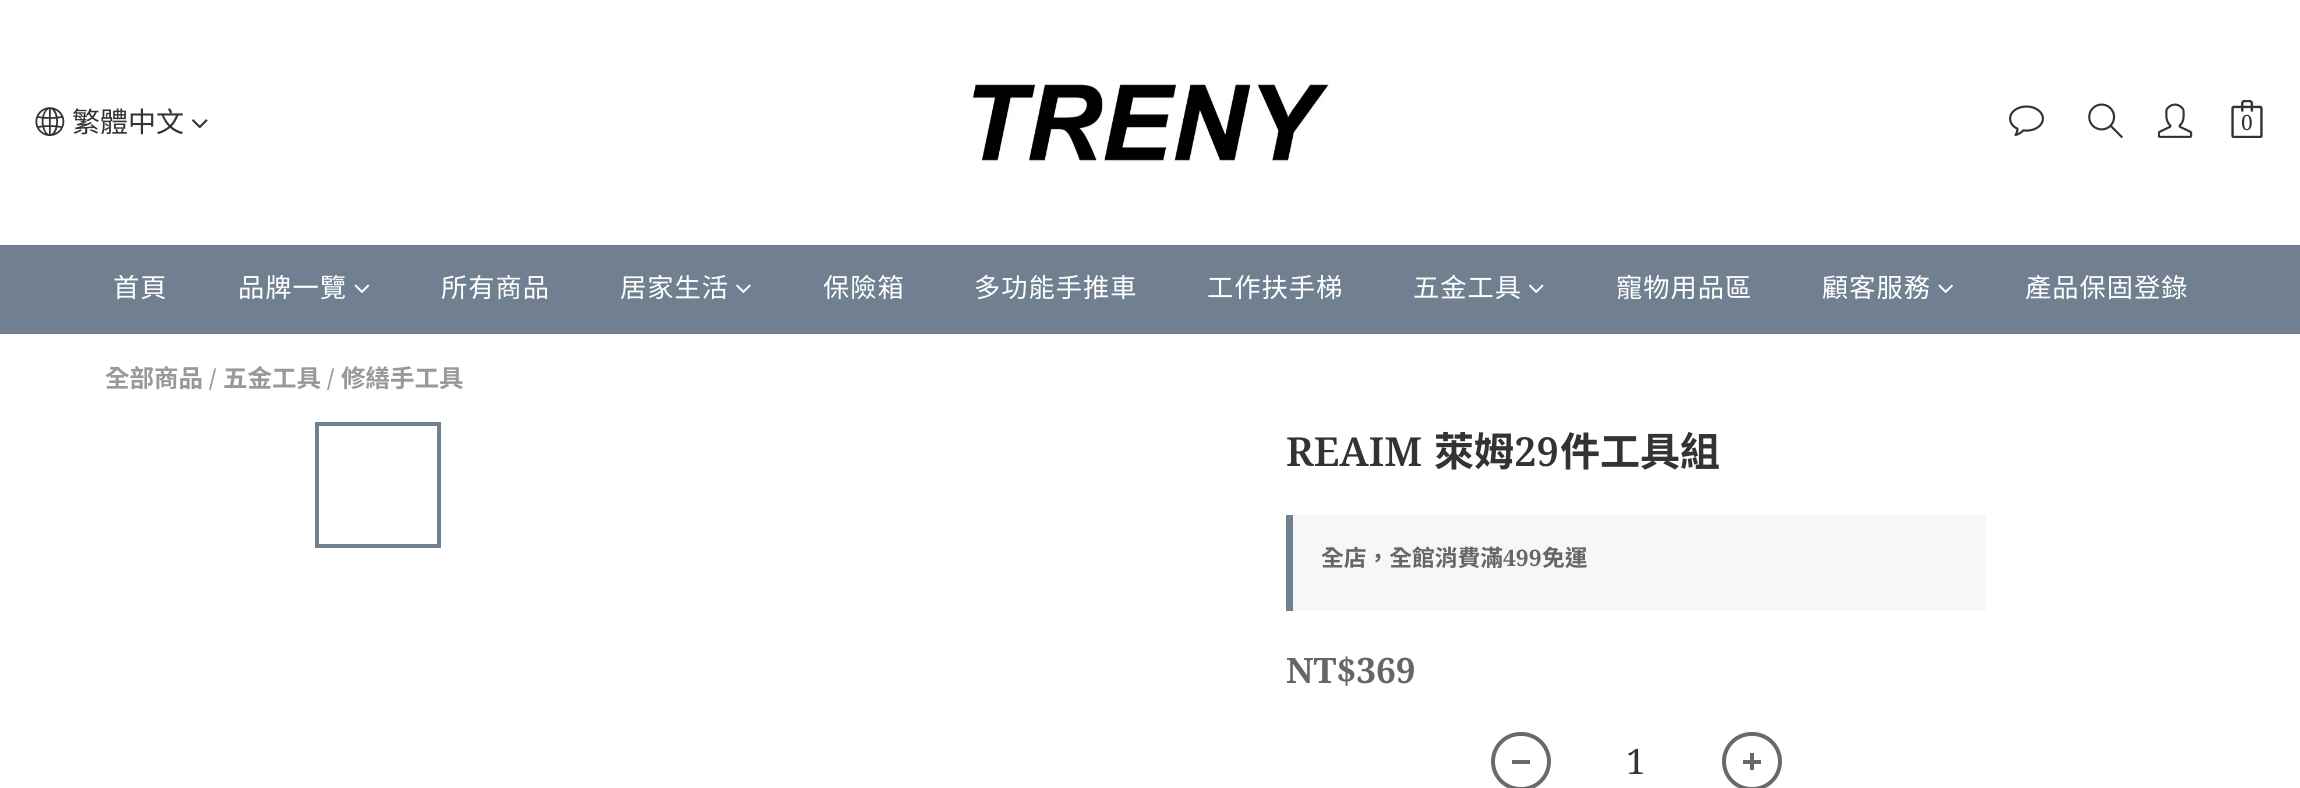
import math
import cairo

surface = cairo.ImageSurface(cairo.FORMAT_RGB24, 2300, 788)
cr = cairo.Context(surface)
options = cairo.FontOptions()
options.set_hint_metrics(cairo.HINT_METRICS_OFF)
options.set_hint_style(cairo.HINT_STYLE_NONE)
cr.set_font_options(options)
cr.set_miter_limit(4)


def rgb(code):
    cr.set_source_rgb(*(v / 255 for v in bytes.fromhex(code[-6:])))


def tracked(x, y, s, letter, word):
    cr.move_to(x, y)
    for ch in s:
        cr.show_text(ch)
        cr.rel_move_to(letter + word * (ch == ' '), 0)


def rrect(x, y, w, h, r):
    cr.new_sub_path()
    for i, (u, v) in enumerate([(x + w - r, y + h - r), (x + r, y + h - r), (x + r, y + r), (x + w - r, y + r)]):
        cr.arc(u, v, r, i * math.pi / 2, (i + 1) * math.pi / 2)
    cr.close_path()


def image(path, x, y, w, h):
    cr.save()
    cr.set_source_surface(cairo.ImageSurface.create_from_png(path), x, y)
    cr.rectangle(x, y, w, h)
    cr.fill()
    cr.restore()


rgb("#ffffff")
cr.paint()
image("img/1.png", 35, 107, 30, 30)
image("img/2.png", 192, 119, 16, 10)
image("img/3.png", 972, 83, 358, 79)
image("img/4.png", 2009, 105, 35, 32)
image("img/5.png", 2088, 103, 35, 35)
image("img/6.png", 2158, 103, 35, 35)
image("img/7.png", 2231, 100, 32, 38)
rgb("#708090")
cr.rectangle(0, 245, 2300, 89)
cr.fill()
image("img/8.png", 354, 284, 16, 9)
image("img/9.png", 736, 284, 15, 9)
image("img/10.png", 1528, 284, 16, 9)
image("img/11.png", 1938, 284, 15, 9)
cr.rectangle(317, 424, 122, 122)
cr.set_line_width(4)
cr.stroke()
rgb("#f7f7f7")
cr.rectangle(1293, 515, 693, 96)
cr.fill()
rgb("#708090")
cr.rectangle(1286, 515, 7, 96)
cr.fill()
rrect(1493, 734, 56, 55, 27.5)
rgb("#696969")
cr.stroke()
cr.rectangle(1512, 760, 18, 4)
cr.fill()
rrect(1724, 734, 56, 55, 27.5)
cr.stroke()
cr.rectangle(1743, 760, 18, 4)
cr.fill()
cr.rectangle(1750, 753, 4, 17)
cr.fill()
cr.select_font_face("Noto Sans TC")
cr.set_font_size(28)
rgb("#333333")
cr.move_to(72, 132)
cr.show_text("繁體中文")
cr.select_font_face("Noto Serif")
cr.set_font_size(21)
cr.move_to(2241, 130)
cr.show_text("0")
cr.select_font_face("Noto Sans TC")
cr.set_font_size(26.25)
rgb("#ffffff")
for x, y, s in [
    (113, 297, "首頁"),
    (238, 297, "品牌一覽"),
    (441, 297, "所有商品"),
    (620, 297, "居家生活"),
    (823, 297, "保險箱"),
    (974, 297, "多功能手推車"),
    (1207, 297, "工作扶手梯"),
    (1413, 297, "五金工具"),
    (1616, 297, "寵物用品區"),
    (1822, 297, "顧客服務"),
    (2025, 297, "產品保固登錄"),
]:
    tracked(x, y, s, 1, 0)
cr.select_font_face("Noto Sans TC", cairo.FONT_SLANT_NORMAL, cairo.FONT_WEIGHT_BOLD)
cr.set_font_size(24.5)
rgb("#999999")
cr.move_to(105, 387)
cr.show_text("全部商品")
cr.select_font_face("Noto Serif", cairo.FONT_SLANT_NORMAL, cairo.FONT_WEIGHT_BOLD)
cr.move_to(209, 387)
cr.show_text("/")
cr.select_font_face("Noto Sans TC", cairo.FONT_SLANT_NORMAL, cairo.FONT_WEIGHT_BOLD)
cr.move_to(223, 387)
cr.show_text("五金工具")
cr.select_font_face("Noto Serif", cairo.FONT_SLANT_NORMAL, cairo.FONT_WEIGHT_BOLD)
cr.move_to(327, 387)
cr.show_text("/")
cr.select_font_face("Noto Sans TC", cairo.FONT_SLANT_NORMAL, cairo.FONT_WEIGHT_BOLD)
cr.move_to(341, 387)
cr.show_text("修繕手工具")
cr.select_font_face("Noto Serif SemiBold")
cr.set_font_size(40)
rgb("#333333")
cr.move_to(1286, 466)
cr.show_text("REAIM")
cr.select_font_face("Noto Sans TC", cairo.FONT_SLANT_NORMAL, cairo.FONT_WEIGHT_BOLD)
cr.move_to(1434, 466)
cr.show_text("萊姆")
cr.select_font_face("Noto Serif SemiBold")
cr.move_to(1514, 466)
cr.show_text("29")
cr.select_font_face("Noto Sans TC", cairo.FONT_SLANT_NORMAL, cairo.FONT_WEIGHT_BOLD)
cr.move_to(1560, 466)
cr.show_text("件工具組")
cr.set_font_size(22.75)
rgb("#666666")
cr.move_to(1321, 566)
cr.show_text("全店，全館消費滿")
cr.select_font_face("Noto Serif", cairo.FONT_SLANT_NORMAL, cairo.FONT_WEIGHT_BOLD)
cr.move_to(1503, 566)
cr.show_text("499")
cr.select_font_face("Noto Sans TC", cairo.FONT_SLANT_NORMAL, cairo.FONT_WEIGHT_BOLD)
cr.move_to(1542, 566)
cr.show_text("免運")
cr.select_font_face("Noto Serif", cairo.FONT_SLANT_NORMAL, cairo.FONT_WEIGHT_BOLD)
cr.set_font_size(35)
cr.move_to(1286, 683)
cr.show_text("NT$369")
cr.select_font_face("Noto Serif")
rgb("#333333")
cr.move_to(1626, 774)
cr.show_text("1")
surface.write_to_png("page.png")
